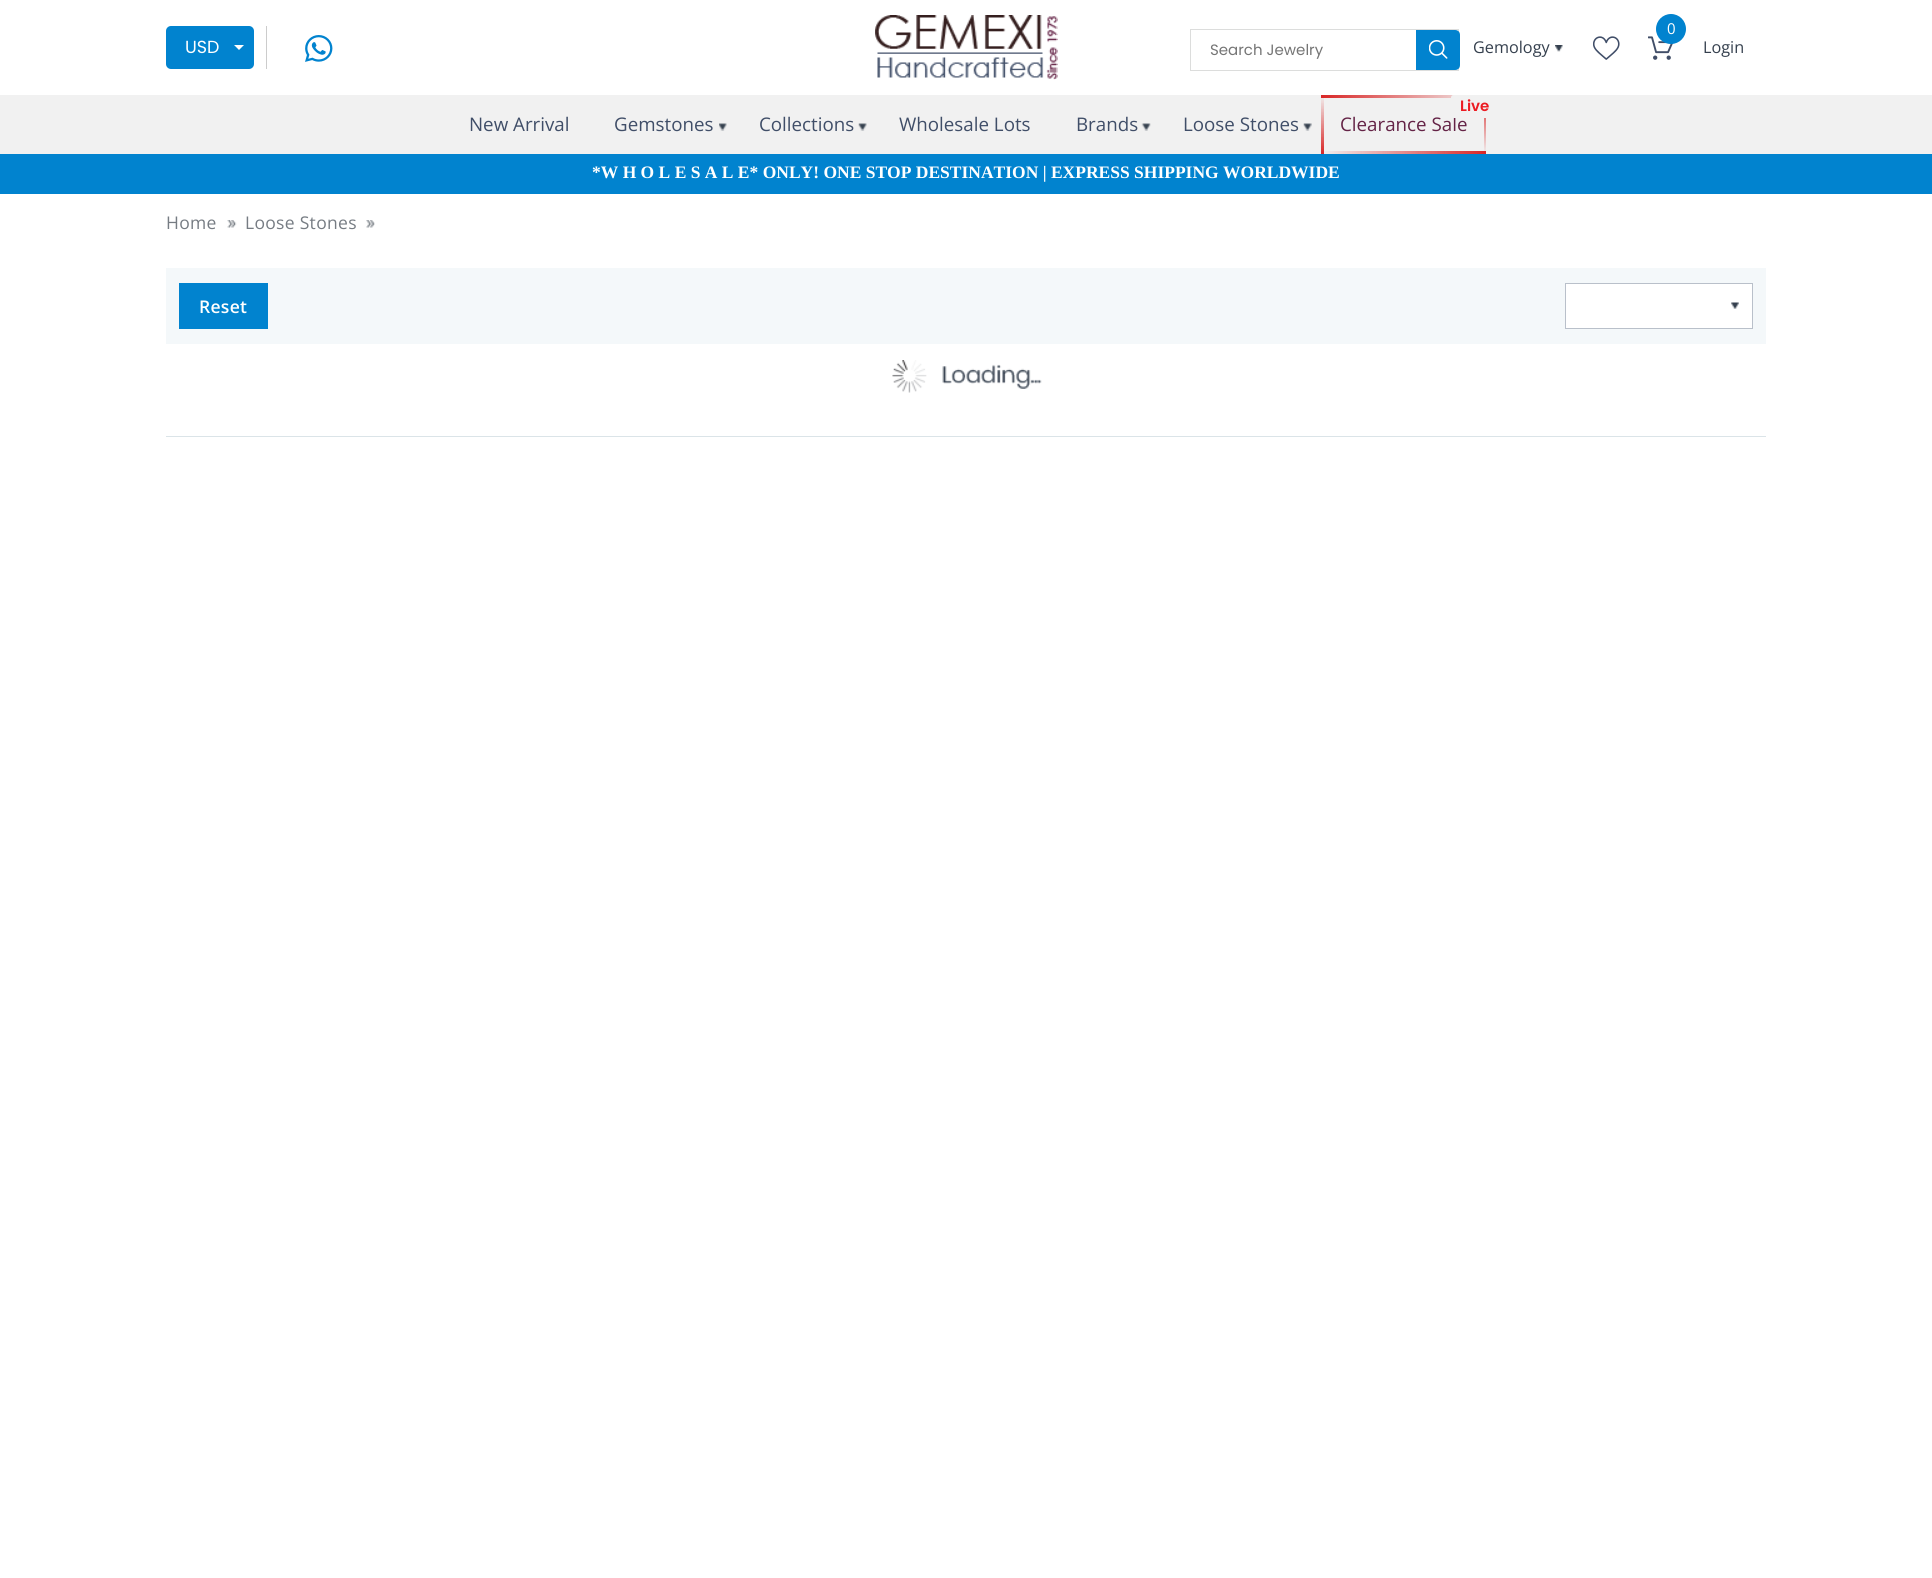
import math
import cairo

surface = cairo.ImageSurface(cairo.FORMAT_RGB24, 1932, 1578)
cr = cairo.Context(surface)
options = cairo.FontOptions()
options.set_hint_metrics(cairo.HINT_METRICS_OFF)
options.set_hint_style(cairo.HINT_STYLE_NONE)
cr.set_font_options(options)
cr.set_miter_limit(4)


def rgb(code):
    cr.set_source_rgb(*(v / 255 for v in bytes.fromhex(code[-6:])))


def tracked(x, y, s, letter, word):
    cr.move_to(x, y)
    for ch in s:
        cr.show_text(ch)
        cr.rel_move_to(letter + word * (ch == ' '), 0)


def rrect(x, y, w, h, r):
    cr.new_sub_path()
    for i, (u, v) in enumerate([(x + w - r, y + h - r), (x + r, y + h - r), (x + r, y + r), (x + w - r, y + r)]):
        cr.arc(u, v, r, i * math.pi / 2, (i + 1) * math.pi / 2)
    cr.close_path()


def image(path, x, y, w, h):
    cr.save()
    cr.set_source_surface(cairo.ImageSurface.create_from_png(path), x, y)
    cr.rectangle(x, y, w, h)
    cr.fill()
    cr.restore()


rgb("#ffffff")
cr.paint()
rgb("#cccccc")
cr.rectangle(266, 26, 1, 43)
cr.fill()
rgb("#0183cf")
rrect(166, 26, 88, 43, 5)
cr.fill()
rgb("#ffffff")
cr.new_path()
cr.move_to(234, 45)
cr.line_to(244, 45)
cr.line_to(239, 50)
cr.close_path()
cr.fill()
image("img/1.png", 305, 35, 28, 27)
image("img/2.png", 875, 15, 183, 65)
cr.rectangle(1190.5, 29.5, 268, 41)
rgb("#dcdddc")
cr.set_line_width(1)
cr.stroke()
rgb("#0183cf")
cr.new_path()
cr.move_to(1416, 30)
cr.line_to(1455, 30)
cr.curve_to(1458, 30, 1460, 32, 1460, 35)
cr.line_to(1460, 65)
cr.curve_to(1460, 68, 1458, 70, 1455, 70)
cr.line_to(1416, 70)
cr.close_path()
cr.fill()
image("img/3.png", 1429, 40, 19, 19)
image("img/4.png", 1648, 36, 25, 24)
cr.arc(1671, 29, 15, 0, 2 * math.pi)
cr.fill()
image("img/5.png", 1555, 45, 8, 7)
image("img/6.png", 1593, 36, 27, 24)
rgb("#f1f1f1")
cr.rectangle(0, 95, 1932, 59)
cr.fill()
image("img/7.png", 719, 123, 8, 8)
image("img/8.png", 858, 123, 9, 8)
image("img/9.png", 1141, 123, 10, 8)
image("img/10.png", 1303, 123, 9, 8)
gradient = cairo.LinearGradient(1486, 96, 1321, 96)
gradient.add_color_stop_rgba(0, 0.945, 0.945, 0.945, 1)
gradient.add_color_stop_rgba(1, 0.851, 0.149, 0.149, 1)
cr.set_source(gradient)
cr.rectangle(1321, 95, 133, 3)
cr.fill()
gradient = cairo.LinearGradient(1485, 154, 1485, 95)
gradient.add_color_stop_rgba(0, 0.945, 0.945, 0.945, 1)
gradient.add_color_stop_rgba(1, 0.851, 0.149, 0.149, 1)
cr.set_source(gradient)
cr.rectangle(1484, 118, 2, 36)
cr.fill()
gradient = cairo.LinearGradient(1321, 153, 1486, 153)
gradient.add_color_stop_rgba(0, 0.851, 0.149, 0.149, 0)
gradient.add_color_stop_rgba(1, 0.851, 0.149, 0.149, 1)
cr.set_source(gradient)
cr.rectangle(1321, 151, 165, 3)
cr.fill()
gradient = cairo.LinearGradient(1323, 95, 1323, 154)
gradient.add_color_stop_rgba(0, 0.851, 0.149, 0.149, 0)
gradient.add_color_stop_rgba(1, 0.851, 0.149, 0.149, 1)
cr.set_source(gradient)
cr.rectangle(1321, 95, 3, 59)
cr.fill()
rgb("#0183cf")
cr.rectangle(0, 154, 1932, 40)
cr.fill()
image("img/11.png", 227, 220, 10, 8)
image("img/12.png", 366, 220, 9, 8)
for x, y, w, h, color in [
    (166, 436, 1600, 1, "#dbe4e8"),
    (166, 268, 1600, 76, "#f4f8fa"),
    (179, 283, 89, 46, "#0183cf"),
    (1566, 284, 186, 44, "#ffffff"),
]:
    rgb(color)
    cr.rectangle(x, y, w, h)
    cr.fill()
image("img/13.png", 1731, 302, 8, 7)
cr.rectangle(1565.5, 283.5, 187, 45)
rgb("#b9c0ca")
cr.stroke()
image("img/14.png", 892, 360, 150, 33)
cr.select_font_face("Poppins")
cr.set_font_size(17.5)
rgb("#ffffff")
cr.move_to(185, 53)
cr.show_text("USD")
cr.set_font_size(15)
rgb("#757575")
cr.move_to(1210, 55)
cr.show_text("Search Jewelry")
cr.select_font_face("Open Sans")
rgb("#ffffff")
cr.move_to(1667, 34)
cr.show_text("0")
cr.set_font_size(16.25)
rgb("#35404e")
cr.move_to(1473, 53)
cr.show_text("Gemology")
cr.move_to(1703, 53)
cr.show_text("Login")
cr.set_font_size(18.75)
rgb("#404e68")
for x, y, s in [
    (469, 131, "New Arrival"),
    (614, 131, "Gemstones"),
    (759, 131, "Collections"),
    (899, 131, "Wholesale Lots"),
    (1076, 131, "Brands"),
    (1183, 131, "Loose Stones"),
]:
    cr.move_to(x, y)
    cr.show_text(s)
rgb("#642346")
cr.move_to(1340, 131)
cr.show_text("Clearance Sale")
rgb("#f1f1f1")
rrect(1451, 95, 48, 23, 2.5)
cr.fill()
cr.select_font_face("Poppins SemiBold")
cr.set_font_size(15)
rgb("#ec1b22")
cr.move_to(1460, 111)
cr.show_text("Live")
cr.select_font_face("Liberation Serif", cairo.FONT_SLANT_NORMAL, cairo.FONT_WEIGHT_BOLD)
cr.set_font_size(17.5)
rgb("#ffffff")
cr.move_to(592, 178)
cr.show_text("*W H O L E S A L E* ONLY! ONE STOP DESTINATION | EXPRESS SHIPPING WORLDWIDE")
cr.select_font_face("Open Sans")
rgb("#767c83")
tracked(166, 229, "Home", 0.3, 0)
tracked(245, 229, "Loose Stones", 0.3, 0)
cr.select_font_face("Open Sans SemiBold")
rgb("#ffffff")
tracked(199, 313, "Reset", 0.3, 0)
surface.write_to_png("page.png")
